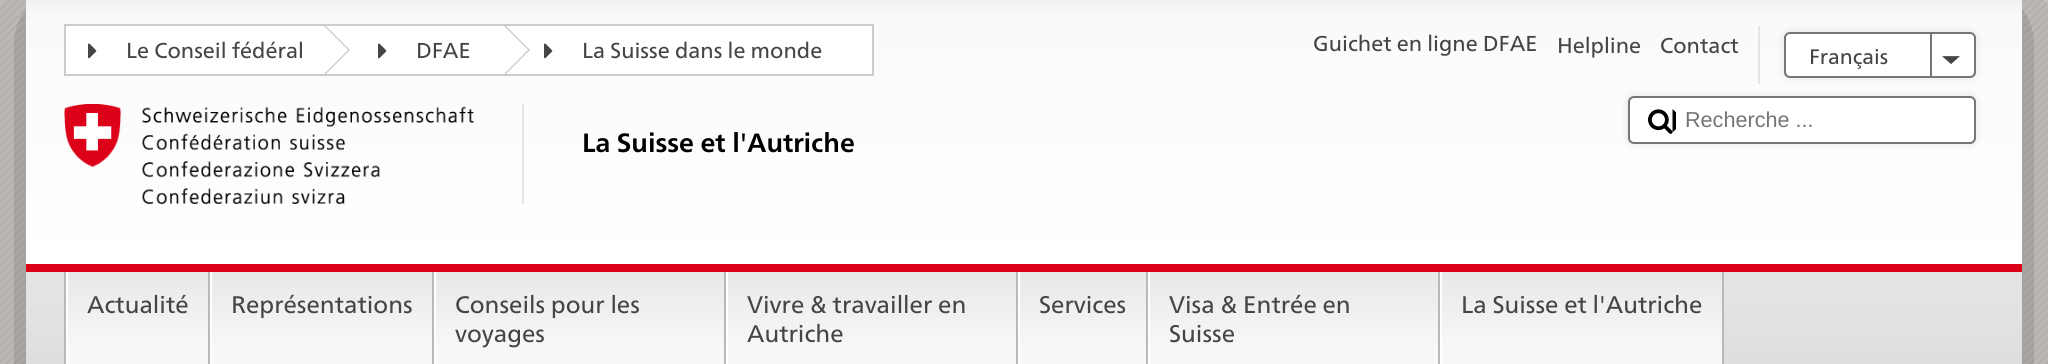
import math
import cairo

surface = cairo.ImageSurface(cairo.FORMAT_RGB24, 2048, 364)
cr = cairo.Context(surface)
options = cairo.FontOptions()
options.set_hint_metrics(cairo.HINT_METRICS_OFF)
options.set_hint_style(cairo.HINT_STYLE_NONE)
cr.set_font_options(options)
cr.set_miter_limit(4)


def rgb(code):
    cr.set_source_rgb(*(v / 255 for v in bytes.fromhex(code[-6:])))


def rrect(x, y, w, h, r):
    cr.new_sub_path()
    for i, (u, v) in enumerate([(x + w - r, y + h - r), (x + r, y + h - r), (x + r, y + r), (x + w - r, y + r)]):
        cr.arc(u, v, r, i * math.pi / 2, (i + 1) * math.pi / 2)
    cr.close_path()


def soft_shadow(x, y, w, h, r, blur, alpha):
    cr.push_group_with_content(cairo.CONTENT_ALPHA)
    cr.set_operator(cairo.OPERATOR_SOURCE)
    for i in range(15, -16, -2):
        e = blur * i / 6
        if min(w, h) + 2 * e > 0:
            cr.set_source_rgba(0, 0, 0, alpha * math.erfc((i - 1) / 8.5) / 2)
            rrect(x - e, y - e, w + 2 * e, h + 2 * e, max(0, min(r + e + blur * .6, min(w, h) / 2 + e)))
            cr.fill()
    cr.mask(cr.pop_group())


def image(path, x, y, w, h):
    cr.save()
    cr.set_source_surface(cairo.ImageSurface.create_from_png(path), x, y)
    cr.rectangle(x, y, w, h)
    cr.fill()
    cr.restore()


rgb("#ffffff")
cr.paint()
image("img/1.png", 0, 0, 2048, 364)
rgb("#000000")
soft_shadow(26, 0, 1996, 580, 0, 72, 0.6)
gradient = cairo.LinearGradient(1024, 0, 1024, 264)
gradient.add_color_stop_rgba(0, 0.949, 0.949, 0.949, 1)
gradient.add_color_stop_rgba(0.07, 0.98, 0.98, 0.98, 1)
gradient.add_color_stop_rgba(1, 1, 1, 1, 1)
cr.set_source(gradient)
cr.rectangle(26, 0, 1996, 264)
cr.fill()
rgb("#ffffff")
cr.rectangle(65, 25, 808, 50)
cr.fill_preserve()
rgb("#cccccc")
cr.stroke()
cr.new_path()
cr.move_to(324, 76)
cr.line_to(324, 24)
cr.line_to(350, 50)
cr.close_path()
cr.fill()
image("img/2.png", 88, 43, 9, 16)
rgb("#ffffff")
cr.new_path()
cr.move_to(324, 74)
cr.line_to(324, 26)
cr.line_to(348, 50)
cr.close_path()
cr.fill()
rgb("#cccccc")
cr.new_path()
cr.move_to(504, 76)
cr.line_to(504, 24)
cr.line_to(530, 50)
cr.close_path()
cr.fill()
image("img/2.png", 378, 43, 9, 16)
rgb("#ffffff")
cr.new_path()
cr.move_to(504, 74)
cr.line_to(504, 26)
cr.line_to(528, 50)
cr.close_path()
cr.fill()
image("img/2.png", 544, 43, 9, 16)
rgb("#000000")
soft_shadow(1628, 96, 348, 48, 6, 4, 0.1)
rgb("#e5e5e5")
cr.rectangle(1758, 26, 2, 58)
cr.fill()
rgb("#000000")
soft_shadow(1784, 32, 192, 46, 6, 4, 0.1)
rgb("#ffffff")
rrect(1785, 33, 190, 44, 5)
cr.fill_preserve()
rgb("#757575")
cr.stroke()
image("img/3.png", 1942, 56, 18, 8)
cr.rectangle(1930, 32, 2, 46)
cr.fill()
rgb("#ffffff")
rrect(1629, 97, 346, 46, 5)
cr.fill_preserve()
rgb("#757575")
cr.stroke()
image("img/4.png", 1648, 109, 28, 25)
image("img/5.png", 64, 104, 410, 100)
rgb("#e5e5e5")
cr.rectangle(522, 104, 2, 100)
cr.fill()
gradient = cairo.LinearGradient(1024, 272, 1024, 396)
gradient.add_color_stop_rgba(0, 0.894, 0.894, 0.894, 1)
gradient.add_color_stop_rgba(0.39, 0.886, 0.886, 0.886, 1)
gradient.add_color_stop_rgba(0.79, 0.867, 0.867, 0.867, 1)
gradient.add_color_stop_rgba(0.91, 0.835, 0.835, 0.835, 1)
gradient.add_color_stop_rgba(0.95, 0.812, 0.812, 0.812, 1)
gradient.add_color_stop_rgba(1, 0.745, 0.745, 0.745, 1)
cr.set_source(gradient)
cr.rectangle(26, 272, 1996, 92)
cr.fill()
rgb("#dc0018")
cr.rectangle(26, 264, 1996, 8)
cr.fill()
rgb("#b8b8b8")
cr.rectangle(64, 272, 2, 92)
cr.fill()
gradient = cairo.LinearGradient(138, 272, 138, 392)
gradient.add_color_stop_rgba(0, 0.91, 0.91, 0.91, 1)
gradient.add_color_stop_rgba(0.61, 0.969, 0.969, 0.969, 1)
gradient.add_color_stop_rgba(0.89, 0.969, 0.969, 0.969, 1)
gradient.add_color_stop_rgba(0.91, 0.961, 0.961, 0.961, 1)
gradient.add_color_stop_rgba(0.95, 0.925, 0.925, 0.925, 1)
gradient.add_color_stop_rgba(1, 0.843, 0.843, 0.843, 1)
cr.set_source(gradient)
cr.rectangle(68, 272, 140, 92)
cr.fill()
rgb("#b8b8b8")
cr.rectangle(208, 272, 2, 92)
cr.fill()
rgb("#ffffff")
cr.rectangle(66, 272, 2, 92)
cr.fill()
gradient = cairo.LinearGradient(322, 272, 322, 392)
gradient.add_color_stop_rgba(0, 0.91, 0.91, 0.91, 1)
gradient.add_color_stop_rgba(0.61, 0.969, 0.969, 0.969, 1)
gradient.add_color_stop_rgba(0.89, 0.969, 0.969, 0.969, 1)
gradient.add_color_stop_rgba(0.91, 0.961, 0.961, 0.961, 1)
gradient.add_color_stop_rgba(0.95, 0.925, 0.925, 0.925, 1)
gradient.add_color_stop_rgba(1, 0.843, 0.843, 0.843, 1)
cr.set_source(gradient)
cr.rectangle(212, 272, 220, 92)
cr.fill()
rgb("#b8b8b8")
cr.rectangle(432, 272, 2, 92)
cr.fill()
rgb("#ffffff")
cr.rectangle(210, 272, 2, 92)
cr.fill()
gradient = cairo.LinearGradient(580, 272, 580, 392)
gradient.add_color_stop_rgba(0, 0.91, 0.91, 0.91, 1)
gradient.add_color_stop_rgba(0.61, 0.969, 0.969, 0.969, 1)
gradient.add_color_stop_rgba(0.89, 0.969, 0.969, 0.969, 1)
gradient.add_color_stop_rgba(0.91, 0.961, 0.961, 0.961, 1)
gradient.add_color_stop_rgba(0.95, 0.925, 0.925, 0.925, 1)
gradient.add_color_stop_rgba(1, 0.843, 0.843, 0.843, 1)
cr.set_source(gradient)
cr.rectangle(436, 272, 288, 92)
cr.fill()
rgb("#b8b8b8")
cr.rectangle(724, 272, 2, 92)
cr.fill()
rgb("#ffffff")
cr.rectangle(434, 272, 2, 92)
cr.fill()
gradient = cairo.LinearGradient(872, 272, 872, 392)
gradient.add_color_stop_rgba(0, 0.91, 0.91, 0.91, 1)
gradient.add_color_stop_rgba(0.61, 0.969, 0.969, 0.969, 1)
gradient.add_color_stop_rgba(0.89, 0.969, 0.969, 0.969, 1)
gradient.add_color_stop_rgba(0.91, 0.961, 0.961, 0.961, 1)
gradient.add_color_stop_rgba(0.95, 0.925, 0.925, 0.925, 1)
gradient.add_color_stop_rgba(1, 0.843, 0.843, 0.843, 1)
cr.set_source(gradient)
cr.rectangle(728, 272, 288, 92)
cr.fill()
rgb("#b8b8b8")
cr.rectangle(1016, 272, 2, 92)
cr.fill()
rgb("#ffffff")
cr.rectangle(726, 272, 2, 92)
cr.fill()
gradient = cairo.LinearGradient(1083, 272, 1083, 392)
gradient.add_color_stop_rgba(0, 0.91, 0.91, 0.91, 1)
gradient.add_color_stop_rgba(0.61, 0.969, 0.969, 0.969, 1)
gradient.add_color_stop_rgba(0.89, 0.969, 0.969, 0.969, 1)
gradient.add_color_stop_rgba(0.91, 0.961, 0.961, 0.961, 1)
gradient.add_color_stop_rgba(0.95, 0.925, 0.925, 0.925, 1)
gradient.add_color_stop_rgba(1, 0.843, 0.843, 0.843, 1)
cr.set_source(gradient)
cr.rectangle(1020, 272, 126, 92)
cr.fill()
rgb("#b8b8b8")
cr.rectangle(1146, 272, 2, 92)
cr.fill()
rgb("#ffffff")
cr.rectangle(1018, 272, 2, 92)
cr.fill()
gradient = cairo.LinearGradient(1294, 272, 1294, 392)
gradient.add_color_stop_rgba(0, 0.91, 0.91, 0.91, 1)
gradient.add_color_stop_rgba(0.61, 0.969, 0.969, 0.969, 1)
gradient.add_color_stop_rgba(0.89, 0.969, 0.969, 0.969, 1)
gradient.add_color_stop_rgba(0.91, 0.961, 0.961, 0.961, 1)
gradient.add_color_stop_rgba(0.95, 0.925, 0.925, 0.925, 1)
gradient.add_color_stop_rgba(1, 0.843, 0.843, 0.843, 1)
cr.set_source(gradient)
cr.rectangle(1150, 272, 288, 92)
cr.fill()
rgb("#b8b8b8")
cr.rectangle(1438, 272, 2, 92)
cr.fill()
rgb("#ffffff")
cr.rectangle(1148, 272, 2, 92)
cr.fill()
gradient = cairo.LinearGradient(1582, 272, 1582, 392)
gradient.add_color_stop_rgba(0, 0.91, 0.91, 0.91, 1)
gradient.add_color_stop_rgba(0.61, 0.969, 0.969, 0.969, 1)
gradient.add_color_stop_rgba(0.89, 0.969, 0.969, 0.969, 1)
gradient.add_color_stop_rgba(0.91, 0.961, 0.961, 0.961, 1)
gradient.add_color_stop_rgba(0.95, 0.925, 0.925, 0.925, 1)
gradient.add_color_stop_rgba(1, 0.843, 0.843, 0.843, 1)
cr.set_source(gradient)
cr.rectangle(1442, 272, 280, 92)
cr.fill()
rgb("#b8b8b8")
cr.rectangle(1722, 272, 2, 92)
cr.fill()
rgb("#ffffff")
cr.rectangle(1440, 272, 2, 92)
cr.fill()
cr.select_font_face("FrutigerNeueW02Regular")
cr.set_font_size(21.6)
rgb("#454545")
for x, y, s in [
    (126, 58, "Le Conseil fédéral"),
    (416, 58, "DFAE"),
    (582, 58, "La Suisse dans le monde"),
    (1313, 51, "Guichet en ligne DFAE"),
    (1557, 53, "Helpline"),
    (1660, 53, "Contact"),
]:
    cr.move_to(x, y)
    cr.show_text(s)
cr.set_font_size(21)
cr.move_to(1809, 64)
cr.show_text("Français")
cr.select_font_face("Liberation Sans")
cr.set_font_size(21.6)
rgb("#757575")
cr.move_to(1685, 127)
cr.show_text("Recherche ...")
cr.select_font_face("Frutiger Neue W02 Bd", cairo.FONT_SLANT_NORMAL, cairo.FONT_WEIGHT_BOLD)
cr.set_font_size(26.4)
rgb("#000000")
cr.move_to(582, 152)
cr.show_text("La Suisse et l'Autriche")
cr.select_font_face("FrutigerNeueW02Regular")
cr.set_font_size(24)
rgb("#454545")
for x, y, s in [
    (87, 313, "Actualité"),
    (231, 313, "Représentations"),
    (455, 313, "Conseils pour les"),
    (455, 342, "voyages"),
    (747, 313, "Vivre & travailler en"),
    (747, 342, "Autriche"),
    (1039, 313, "Services"),
    (1169, 313, "Visa & Entrée en"),
    (1169, 342, "Suisse"),
    (1461, 313, "La Suisse et l'Autriche"),
]:
    cr.move_to(x, y)
    cr.show_text(s)
surface.write_to_png("page.png")
